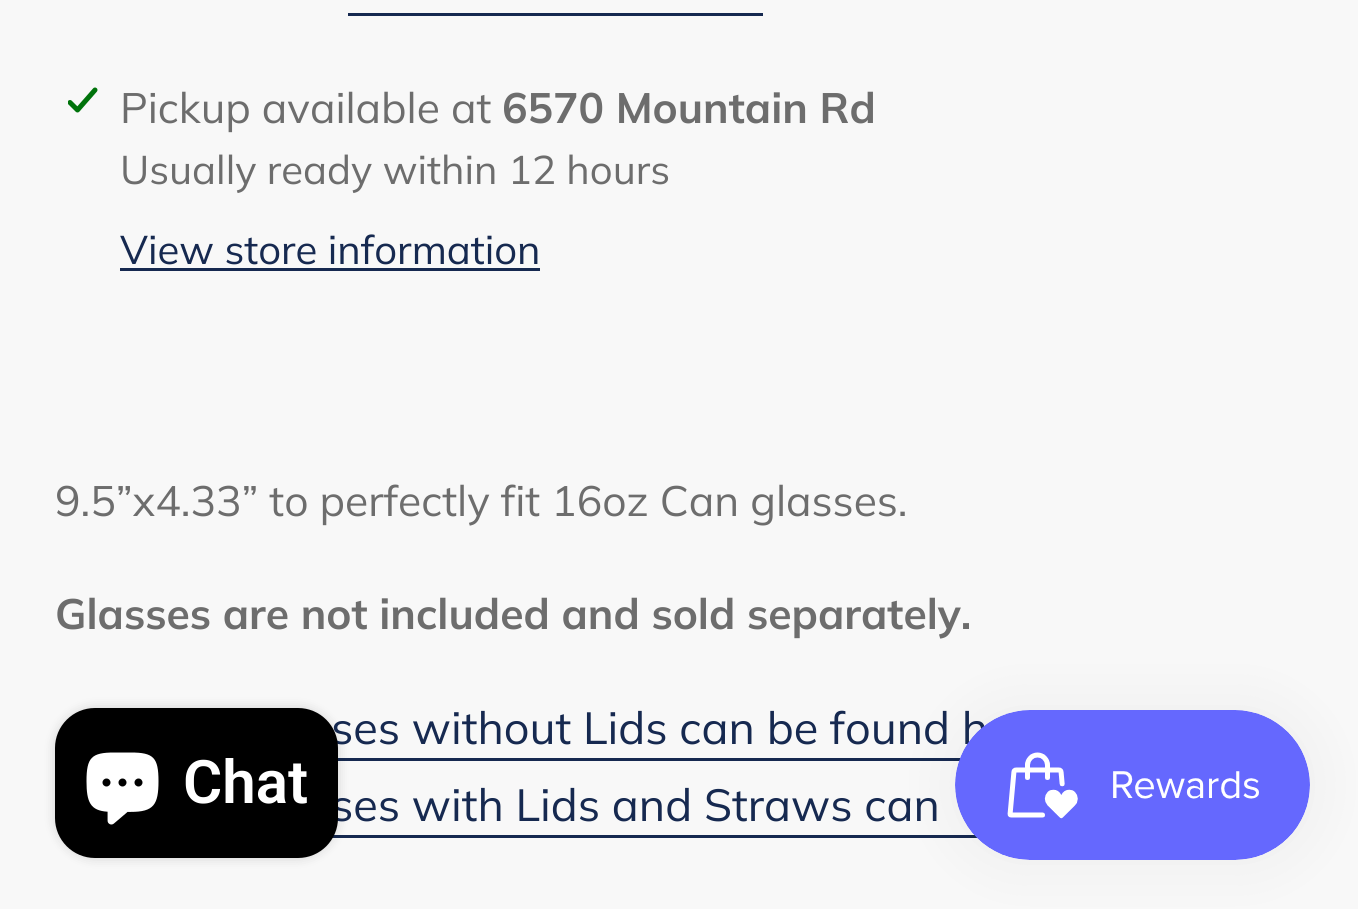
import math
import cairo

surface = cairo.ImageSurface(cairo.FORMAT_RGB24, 1358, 909)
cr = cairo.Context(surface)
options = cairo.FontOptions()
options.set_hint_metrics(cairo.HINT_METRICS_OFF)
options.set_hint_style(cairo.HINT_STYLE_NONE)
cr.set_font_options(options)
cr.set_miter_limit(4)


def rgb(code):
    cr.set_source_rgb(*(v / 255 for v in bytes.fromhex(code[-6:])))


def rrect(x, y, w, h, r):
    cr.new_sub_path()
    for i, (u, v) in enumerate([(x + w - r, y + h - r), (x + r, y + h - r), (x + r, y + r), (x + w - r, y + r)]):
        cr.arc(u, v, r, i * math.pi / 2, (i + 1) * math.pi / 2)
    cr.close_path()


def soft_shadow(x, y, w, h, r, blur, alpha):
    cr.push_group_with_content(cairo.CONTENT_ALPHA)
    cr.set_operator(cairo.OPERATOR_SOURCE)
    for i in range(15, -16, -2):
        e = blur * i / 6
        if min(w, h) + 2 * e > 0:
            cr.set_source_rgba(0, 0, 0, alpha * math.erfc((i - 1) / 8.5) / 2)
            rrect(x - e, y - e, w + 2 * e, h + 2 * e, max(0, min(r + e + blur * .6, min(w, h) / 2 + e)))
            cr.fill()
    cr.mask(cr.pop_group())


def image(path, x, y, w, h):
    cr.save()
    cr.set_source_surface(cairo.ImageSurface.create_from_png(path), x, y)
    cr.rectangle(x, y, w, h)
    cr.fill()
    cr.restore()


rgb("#f8f8f8")
cr.paint()
rgb("#162950")
cr.rectangle(348, 13, 415, 3)
cr.fill()
image("img/1.png", 68, 87, 30, 26)
for x, y, w, h, color in [
    (120, 268, 420, 3, "#162950"),
    (338, 758, 623, 3, "#162950"),
    (332, 835, 645, 3, "#162950"),
]:
    rgb(color)
    cr.rectangle(x, y, w, h)
    cr.fill()
rgb("#000000")
soft_shadow(955, 710, 355, 150, 75, 31, 0.05)
soft_shadow(55, 708, 283, 150, 40, 6, 0.15)
cr.select_font_face("Muli")
cr.set_font_size(42.5)
rgb("#6d6d6d")
cr.move_to(120, 123)
cr.show_text("Pickup available at")
cr.select_font_face("Muli", cairo.FONT_SLANT_NORMAL, cairo.FONT_WEIGHT_BOLD)
cr.move_to(502, 123)
cr.show_text("6570 Mountain Rd")
cr.select_font_face("Muli")
cr.set_font_size(40)
cr.move_to(120, 184)
cr.show_text("Usually ready within 12 hours")
rgb("#162950")
cr.move_to(120, 264)
cr.show_text("View store information")
cr.set_font_size(42.5)
rgb("#6d6d6d")
cr.move_to(55, 516)
cr.show_text("9.5”x4.33” to perfectly fit 16oz Can glasses.")
cr.select_font_face("Muli", cairo.FONT_SLANT_NORMAL, cairo.FONT_WEIGHT_BOLD)
cr.move_to(55, 629)
cr.show_text("Glasses are not included and sold separately.")
cr.select_font_face("Muli")
cr.set_font_size(45)
rgb("#162950")
cr.move_to(331, 744)
cr.show_text("ses without Lids can be found h")
cr.move_to(331, 821)
cr.show_text("ses with Lids and Straws can")
image("img/2.png", 955, 710, 355, 150)
rgb("#000000")
rrect(55, 708, 283, 150, 40)
cr.fill()
image("img/3.png", 86, 752, 73, 73)
cr.select_font_face("Roboto SemiBold")
cr.set_font_size(60)
rgb("#ffffff")
cr.move_to(183, 803)
cr.show_text("Chat")
surface.write_to_png("page.png")
